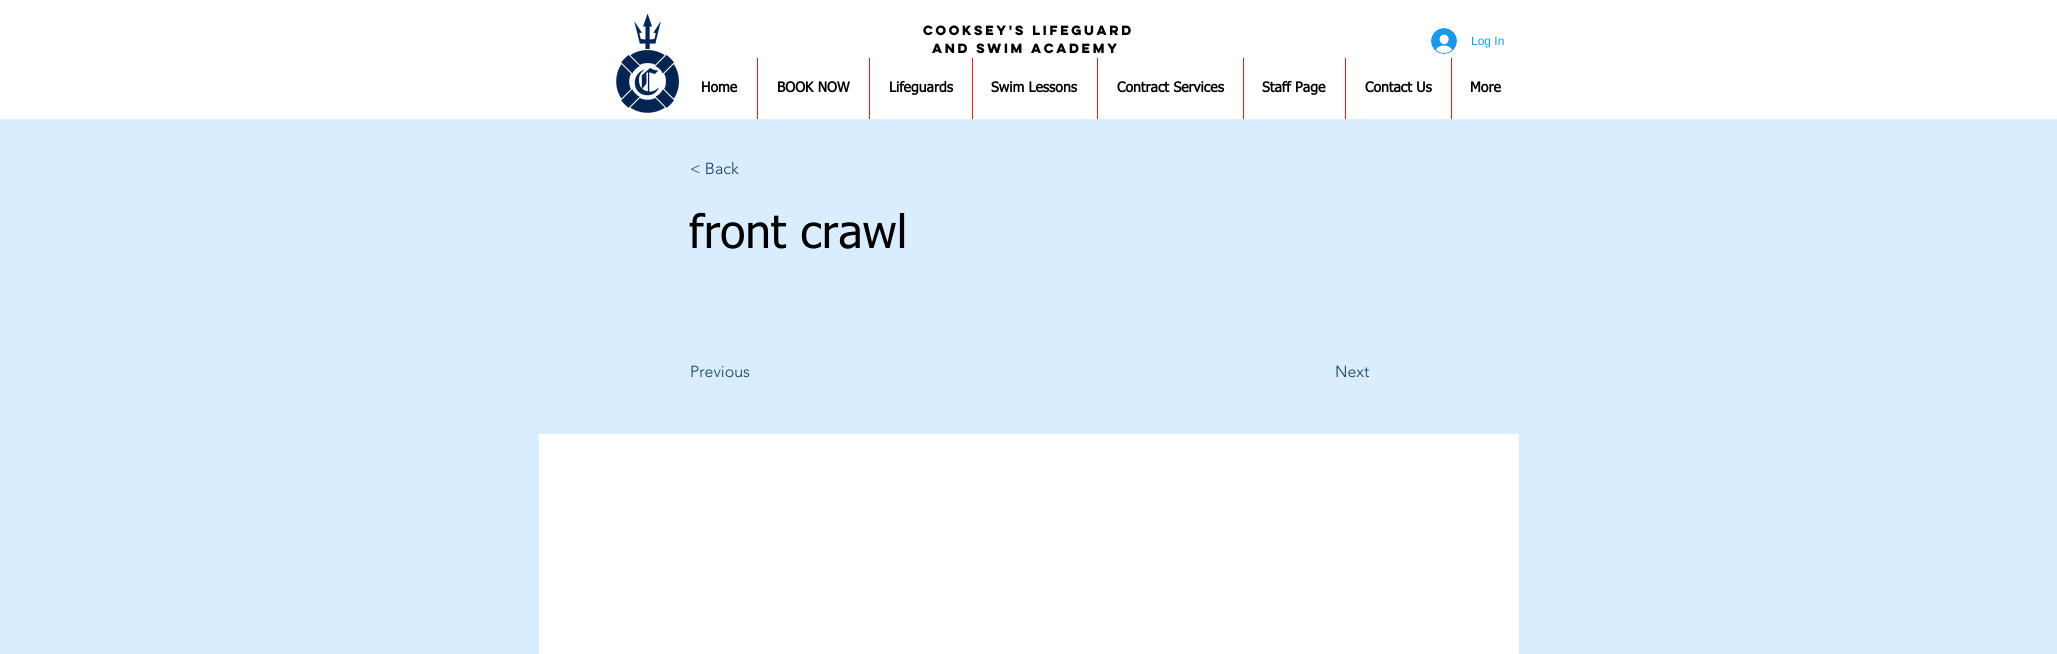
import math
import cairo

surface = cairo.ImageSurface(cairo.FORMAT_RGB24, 2057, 654)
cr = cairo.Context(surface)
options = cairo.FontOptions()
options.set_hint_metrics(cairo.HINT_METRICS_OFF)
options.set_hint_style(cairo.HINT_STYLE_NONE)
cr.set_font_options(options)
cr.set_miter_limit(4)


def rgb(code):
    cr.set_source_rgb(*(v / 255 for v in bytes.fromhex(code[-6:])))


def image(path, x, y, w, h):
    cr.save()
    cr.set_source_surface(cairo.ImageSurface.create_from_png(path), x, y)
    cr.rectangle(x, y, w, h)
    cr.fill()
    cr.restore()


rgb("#daedff")
cr.paint()
rgb("#ffffff")
cr.rectangle(0, 0, 2057, 119)
cr.fill()
image("img/1.png", 616, 13, 64, 100)
image("img/2.png", 1431, 28, 26, 26)
for x, y, w, h, color in [
    (757, 58, 1, 61, "#e21c21"),
    (869, 58, 1, 61, "#e21c21"),
    (972, 58, 1, 61, "#e21c21"),
    (1097, 58, 1, 61, "#e21c21"),
    (1243, 58, 1, 61, "#e21c21"),
    (1345, 58, 1, 61, "#e21c21"),
    (1451, 58, 1, 61, "#e21c21"),
    (539, 434, 980, 220, "#ffffff"),
]:
    rgb(color)
    cr.rectangle(x, y, w, h)
    cr.fill()
cr.select_font_face("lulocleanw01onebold", cairo.FONT_SLANT_NORMAL, cairo.FONT_WEIGHT_BOLD)
cr.set_font_size(12)
rgb("#000000")
cr.move_to(923, 35)
cr.show_text("Cooksey's Lifeguard")
cr.move_to(932, 53)
cr.show_text("and Swim Academy")
cr.select_font_face("Liberation Sans")
rgb("#1b99e8")
cr.move_to(1471, 45)
cr.show_text("Log In")
cr.select_font_face("tahoma", cairo.FONT_SLANT_NORMAL, cairo.FONT_WEIGHT_BOLD)
cr.set_font_size(14)
rgb("#000000")
for x, y, s in [
    (701, 92, "Home"),
    (777, 92, "BOOK NOW"),
    (889, 92, "Lifeguards"),
    (991, 92, "Swim Lessons"),
    (1117, 92, "Contract Services"),
    (1262, 92, "Staff Page"),
    (1365, 92, "Contact Us"),
    (1470, 92, "More"),
]:
    cr.move_to(x, y)
    cr.show_text(s)
cr.select_font_face("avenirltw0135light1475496 Light")
cr.set_font_size(16)
rgb("#0c3c60")
cr.move_to(690, 174)
cr.show_text("< Back")
cr.select_font_face("tahoma")
cr.set_font_size(46)
rgb("#000000")
cr.move_to(689, 248)
cr.show_text("front crawl")
cr.select_font_face("avenirltw0135light1475496 Light")
cr.set_font_size(16)
rgb("#0c3c60")
cr.move_to(690, 377)
cr.show_text("Previous")
cr.move_to(1335, 377)
cr.show_text("Next")
surface.write_to_png("page.png")
